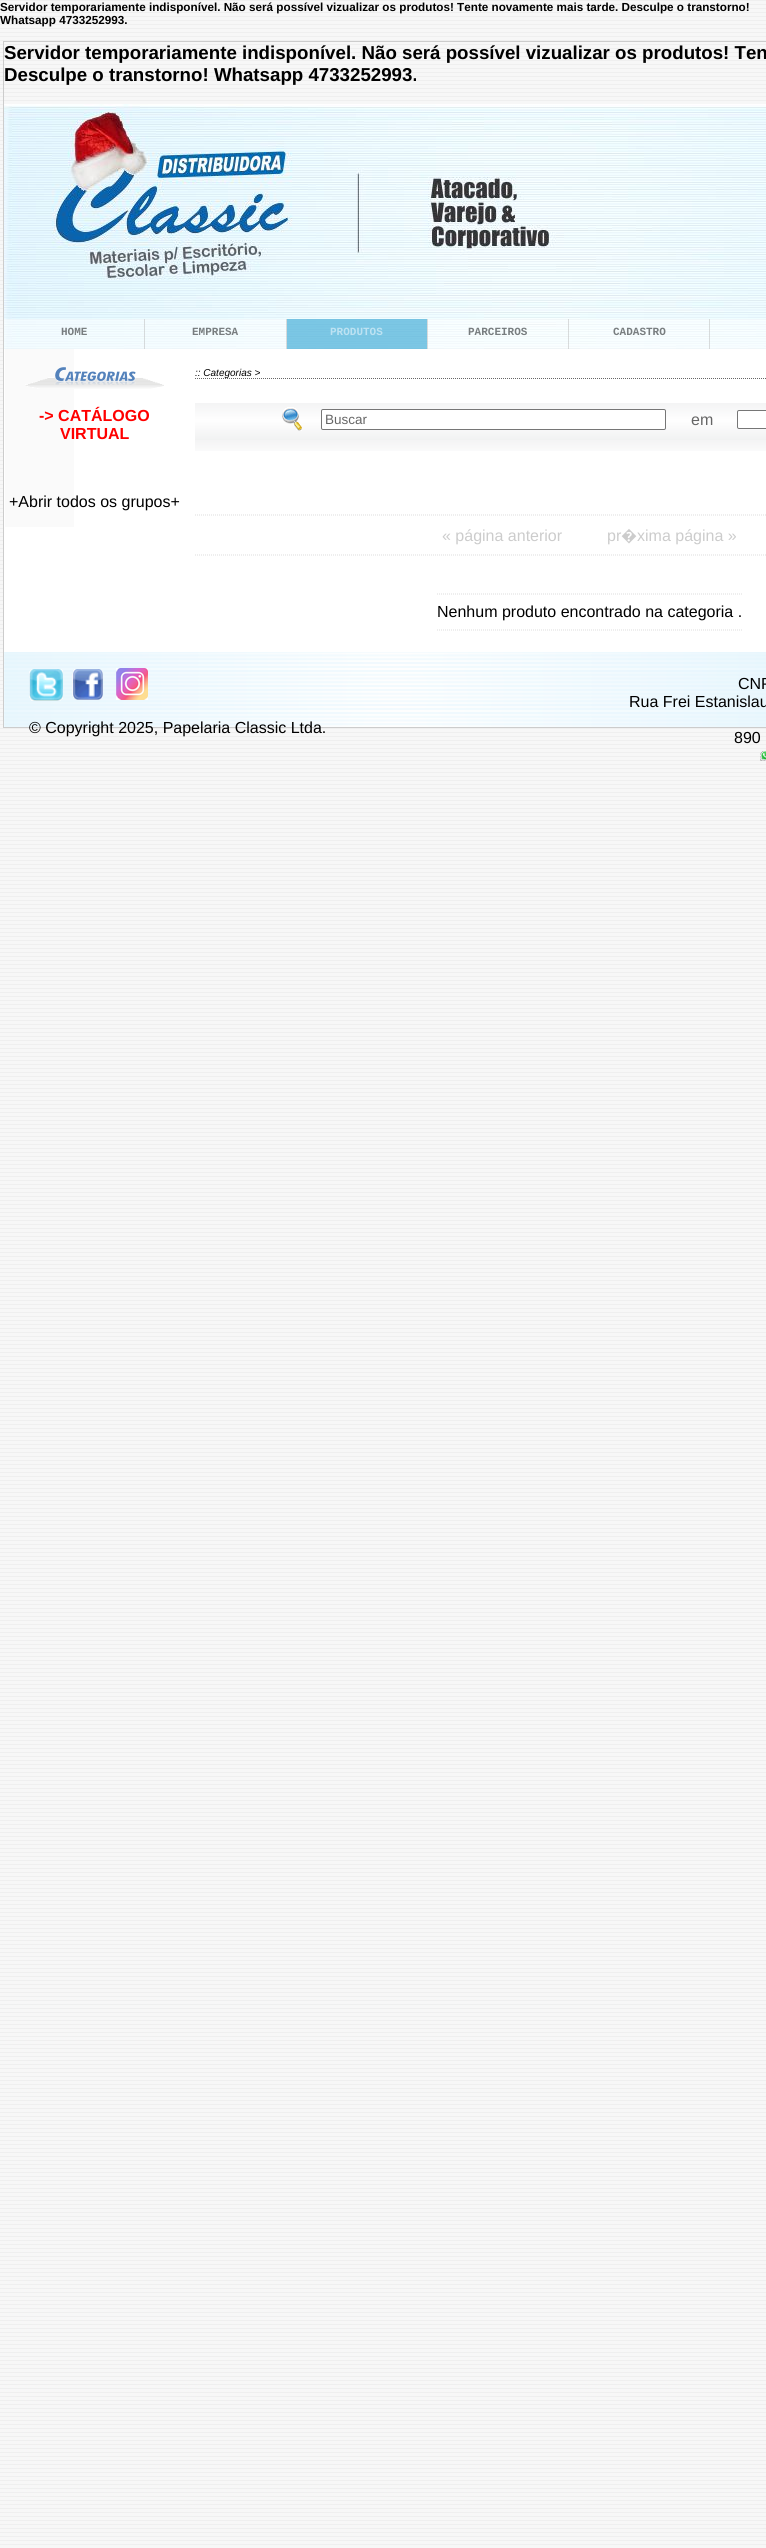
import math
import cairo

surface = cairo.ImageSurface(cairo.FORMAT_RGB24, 766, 2548)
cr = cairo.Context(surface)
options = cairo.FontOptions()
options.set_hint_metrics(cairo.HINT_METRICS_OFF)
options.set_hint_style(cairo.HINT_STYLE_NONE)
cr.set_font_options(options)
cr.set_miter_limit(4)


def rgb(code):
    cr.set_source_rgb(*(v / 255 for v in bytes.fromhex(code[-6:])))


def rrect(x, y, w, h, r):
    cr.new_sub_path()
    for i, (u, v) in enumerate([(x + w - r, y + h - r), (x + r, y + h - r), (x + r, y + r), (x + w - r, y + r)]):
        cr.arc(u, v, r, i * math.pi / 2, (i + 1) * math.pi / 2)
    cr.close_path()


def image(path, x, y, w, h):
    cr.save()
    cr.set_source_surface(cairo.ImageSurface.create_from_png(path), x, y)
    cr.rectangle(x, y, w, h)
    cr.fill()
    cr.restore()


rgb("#ffffff")
cr.paint()
image("img/1.png", 0, 0, 766, 2548)
for x, y, w, h, color in [
    (3, 41, 763, 1, "#cccccc"),
    (3, 727, 763, 1, "#cccccc"),
    (3, 41, 1, 687, "#cccccc"),
]:
    rgb(color)
    cr.rectangle(x, y, w, h)
    cr.fill()
image("img/2.png", 4, 104, 762, 245)
cr.set_source_rgba(1, 1, 1, 0.5)
cr.rectangle(4, 319, 762, 30)
cr.fill()
cr.set_source_rgba(0.733, 0.733, 0.733, 0.5)
cr.rectangle(144, 319, 1, 30)
cr.fill()
cr.rectangle(286, 319, 1, 30)
cr.fill()
cr.rectangle(427, 319, 1, 30)
cr.fill()
cr.set_source_rgba(0, 0.565, 0.796, 0.5)
cr.rectangle(287, 319, 140, 30)
cr.fill()
cr.set_source_rgba(0.733, 0.733, 0.733, 0.5)
cr.rectangle(568, 319, 1, 30)
cr.fill()
cr.rectangle(709, 319, 1, 30)
cr.fill()
rgb("#ffffff")
cr.rectangle(4, 349, 762, 303)
cr.fill()
rgb("#fafafa")
cr.rectangle(5, 349, 69, 178)
cr.fill()
image("img/3.png", 25, 367, 139, 22)
cr.new_path()
cr.move_to(195, 378.5)
cr.line_to(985, 378.5)
rgb("#666666")
cr.set_line_width(1)
cr.set_dash([1, 1])
cr.stroke()
image("img/4.png", 195, 403, 571, 48)
image("img/5.png", 282, 407, 20, 24)
rgb("#ffffff")
rrect(321.5, 409.5, 344, 20, 1.5)
cr.fill_preserve()
rgb("#767676")
cr.set_dash([])
cr.stroke()
rgb("#ffffff")
rrect(737.5, 410.5, 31, 18, 1.5)
cr.fill_preserve()
rgb("#767676")
cr.stroke()
cr.new_path()
cr.move_to(195, 514.5)
cr.line_to(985, 514.5)
rgb("#eeeeee")
cr.set_dash([1, 1])
cr.stroke()
cr.new_path()
cr.move_to(195, 515.5)
cr.line_to(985, 515.5)
cr.stroke()
cr.new_path()
cr.move_to(195, 554.5)
cr.line_to(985, 554.5)
cr.stroke()
cr.new_path()
cr.move_to(195, 555.5)
cr.line_to(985, 555.5)
cr.stroke()
cr.new_path()
cr.move_to(437, 593.5)
cr.line_to(742, 593.5)
cr.stroke()
cr.rectangle(741, 593, 1, 2)
cr.fill()
cr.new_path()
cr.move_to(437, 594.5)
cr.line_to(742, 594.5)
cr.stroke()
cr.new_path()
cr.move_to(437, 629.5)
cr.line_to(742, 629.5)
cr.stroke()
cr.rectangle(741, 629, 1, 2)
cr.fill()
cr.new_path()
cr.move_to(437, 630.5)
cr.line_to(742, 630.5)
cr.stroke()
image("img/6.png", 4, 652, 762, 75)
image("img/7.png", 29, 669, 34, 32)
image("img/8.png", 72, 669, 31, 31)
image("img/9.png", 116, 668, 32, 32)
image("img/10.png", 760, 751, 6, 10)
cr.select_font_face("Liberation Sans", cairo.FONT_SLANT_NORMAL, cairo.FONT_WEIGHT_BOLD)
cr.set_font_size(11.7)
rgb("#000000")
cr.move_to(0, 11)
cr.show_text("Servidor temporariamente indisponível. Não será possível vizualizar os produtos! Tente novamente mais tarde. Desculpe o transtorno!")
cr.move_to(0, 24)
cr.show_text("Whatsapp 4733252993.")
cr.set_font_size(18.7)
cr.move_to(4, 59)
cr.show_text("Servidor temporariamente indisponível. Não será possível vizualizar os produtos! Ten")
cr.move_to(4, 81)
cr.show_text("Desculpe o transtorno! Whatsapp 4733252993.")
cr.select_font_face("Liberation Mono", cairo.FONT_SLANT_NORMAL, cairo.FONT_WEIGHT_BOLD)
cr.set_font_size(11)
rgb("#787d7f")
cr.move_to(61, 335)
cr.show_text("HOME")
cr.move_to(192, 335)
cr.show_text("EMPRESA")
rgb("#bde2f2")
cr.move_to(330, 335)
cr.show_text("PRODUTOS")
rgb("#787d7f")
cr.move_to(468, 335)
cr.show_text("PARCEIROS")
cr.move_to(613, 335)
cr.show_text("CADASTRO")
cr.select_font_face("Liberation Sans", cairo.FONT_SLANT_NORMAL, cairo.FONT_WEIGHT_BOLD)
cr.set_font_size(16)
rgb("#ff0000")
cr.move_to(39, 421)
cr.show_text("-> CATÁLOGO")
cr.move_to(60, 439)
cr.show_text("VIRTUAL")
cr.select_font_face("Liberation Sans")
rgb("#000000")
cr.move_to(9, 507)
cr.show_text("+Abrir todos os grupos+")
cr.select_font_face("Liberation Sans", cairo.FONT_SLANT_ITALIC)
cr.set_font_size(10)
cr.move_to(195, 376)
cr.show_text(":: Categorias >")
cr.select_font_face("Liberation Sans")
cr.set_font_size(13.5)
rgb("#666666")
cr.move_to(325, 424)
cr.show_text("Buscar")
cr.set_font_size(16)
cr.move_to(691, 425)
cr.show_text("em")
rgb("#cccccc")
cr.move_to(442, 541)
cr.show_text("« página anterior")
cr.move_to(607, 541)
cr.show_text("pr")
cr.select_font_face("Noto Sans")
cr.move_to(621, 541)
cr.show_text("�")
cr.select_font_face("Liberation Sans")
cr.move_to(637, 541)
cr.show_text("xima página »")
rgb("#000000")
for x, y, s in [
    (437, 617, "Nenhum produto encontrado na categoria ."),
    (29, 733, "© Copyright 2025, Papelaria Classic Ltda."),
    (738, 689, "CNP"),
    (629, 707, "Rua Frei Estanislau"),
    (734, 743, "890"),
]:
    cr.move_to(x, y)
    cr.show_text(s)
surface.write_to_png("page.png")
